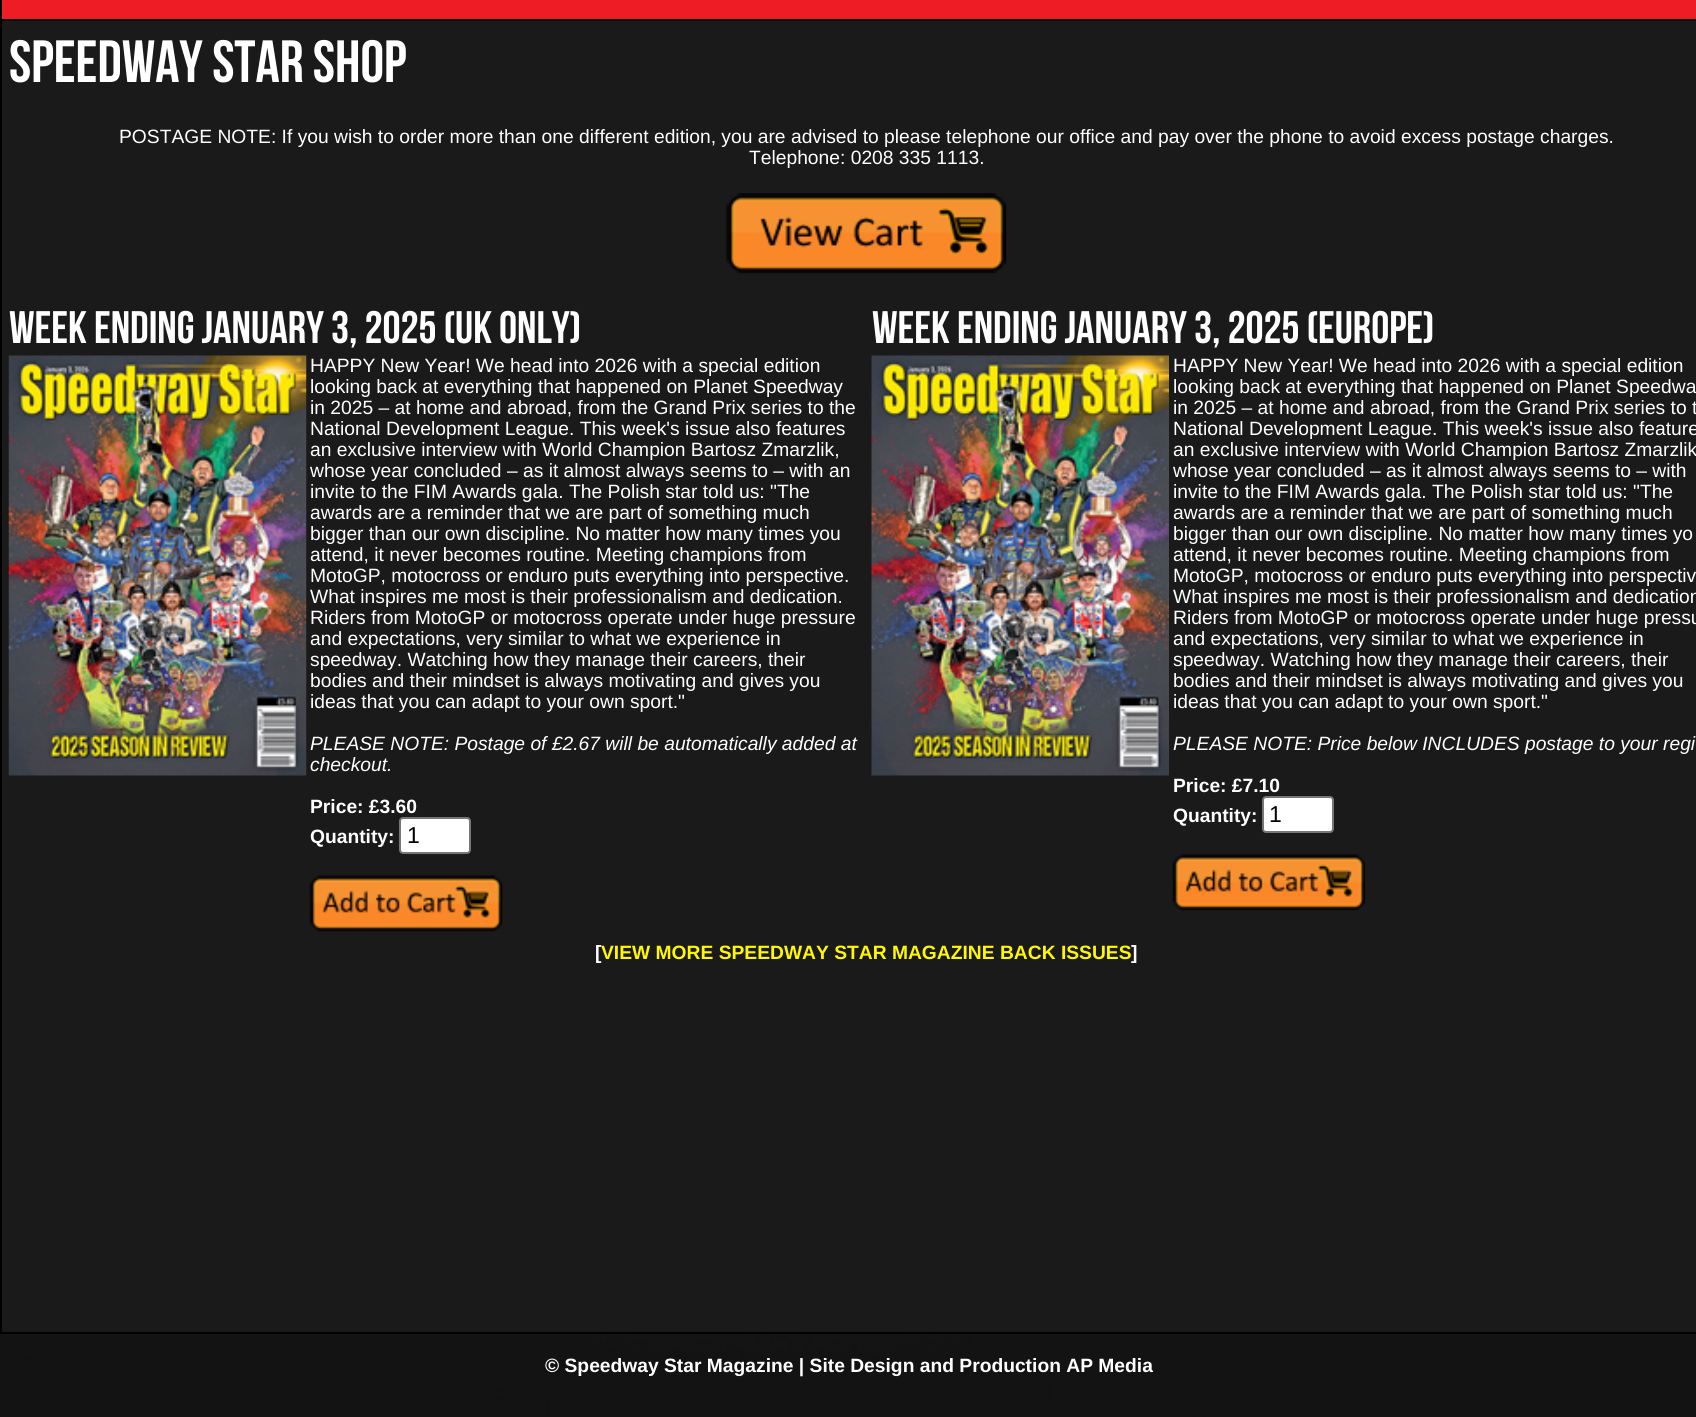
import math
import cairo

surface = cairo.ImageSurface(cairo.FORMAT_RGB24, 1696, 1417)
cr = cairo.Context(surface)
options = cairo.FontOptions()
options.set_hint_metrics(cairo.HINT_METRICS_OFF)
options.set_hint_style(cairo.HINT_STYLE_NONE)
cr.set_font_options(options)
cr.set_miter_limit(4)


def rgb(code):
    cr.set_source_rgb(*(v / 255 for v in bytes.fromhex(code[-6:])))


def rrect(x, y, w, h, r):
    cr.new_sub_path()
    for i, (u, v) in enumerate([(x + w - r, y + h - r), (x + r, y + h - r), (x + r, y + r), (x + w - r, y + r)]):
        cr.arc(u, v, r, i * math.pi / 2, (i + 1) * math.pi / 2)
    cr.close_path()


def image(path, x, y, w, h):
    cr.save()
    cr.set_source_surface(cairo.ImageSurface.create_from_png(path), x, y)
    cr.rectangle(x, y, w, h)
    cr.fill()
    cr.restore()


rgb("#ffffff")
cr.paint()
image("img/1.png", 0, 1334, 1696, 83)
for x, y, w, h, color in [
    (0, 0, 2, 23, "#000000"),
    (2, 0, 1694, 19, "#ee1c25"),
    (2, 19, 1694, 2, "#000000"),
    (0, 1332, 1696, 2, "#000000"),
    (0, 21, 2, 1313, "#000000"),
    (2, 21, 1694, 1311, "#1a1a1a"),
]:
    rgb(color)
    cr.rectangle(x, y, w, h)
    cr.fill()
image("img/2.png", 726, 193, 281, 81)
image("img/3.png", 8, 355, 299, 421)
rgb("#ffffff")
rrect(400, 818, 70, 35, 3)
cr.fill_preserve()
rgb("#767676")
cr.stroke()
image("img/4.png", 309, 875, 194, 57)
image("img/5.png", 871, 355, 298, 421)
rgb("#ffffff")
rrect(1263, 797, 70, 35, 3)
cr.fill_preserve()
rgb("#767676")
cr.stroke()
image("img/6.png", 1172, 854, 193, 57)
cr.select_font_face("Bebas Neue")
cr.set_font_size(59.5)
rgb("#ffffff")
cr.move_to(9, 82)
cr.show_text("SPEEDWAY STAR SHOP")
cr.select_font_face("Liberation Sans")
cr.set_font_size(19.25)
cr.move_to(119, 143)
cr.show_text("POSTAGE NOTE: If you wish to order more than one different edition, you are advised to please telephone our office and pay over the phone to avoid excess postage charges.")
cr.move_to(749, 164)
cr.show_text("Telephone: 0208 335 1113.")
cr.select_font_face("Bebas Neue")
cr.set_font_size(45.5)
cr.move_to(9, 343)
cr.show_text("WEEK ENDING JANUARY 3, 2025 (UK ONLY)")
cr.select_font_face("Liberation Sans")
cr.set_font_size(19.25)
for x, y, s in [
    (310, 372, "HAPPY New Year! We head into 2026 with a special edition"),
    (310, 393, "looking back at everything that happened on Planet Speedway"),
    (310, 414, "in 2025 – at home and abroad, from the Grand Prix series to the"),
    (310, 435, "National Development League. This week's issue also features"),
    (310, 456, "an exclusive interview with World Champion Bartosz Zmarzlik,"),
    (310, 477, "whose year concluded – as it almost always seems to – with an"),
    (310, 498, "invite to the FIM Awards gala. The Polish star told us: \"The"),
    (310, 519, "awards are a reminder that we are part of something much"),
    (310, 540, "bigger than our own discipline. No matter how many times you"),
    (310, 561, "attend, it never becomes routine. Meeting champions from"),
    (310, 582, "MotoGP, motocross or enduro puts everything into perspective."),
    (310, 603, "What inspires me most is their professionalism and dedication."),
    (310, 624, "Riders from MotoGP or motocross operate under huge pressure"),
    (310, 645, "and expectations, very similar to what we experience in"),
    (310, 666, "speedway. Watching how they manage their careers, their"),
    (310, 687, "bodies and their mindset is always motivating and gives you"),
    (310, 708, "ideas that you can adapt to your own sport.\""),
]:
    cr.move_to(x, y)
    cr.show_text(s)
cr.select_font_face("Liberation Sans", cairo.FONT_SLANT_ITALIC)
cr.move_to(310, 750)
cr.show_text("PLEASE NOTE: Postage of £2.67 will be automatically added at")
cr.move_to(310, 771)
cr.show_text("checkout.")
cr.select_font_face("Liberation Sans", cairo.FONT_SLANT_NORMAL, cairo.FONT_WEIGHT_BOLD)
cr.move_to(310, 813)
cr.show_text("Price: £3.60")
cr.move_to(310, 843)
cr.show_text("Quantity:")
cr.select_font_face("Liberation Sans")
cr.set_font_size(23)
rgb("#000000")
cr.move_to(407, 843)
cr.show_text("1")
cr.select_font_face("Bebas Neue")
cr.set_font_size(45.5)
rgb("#ffffff")
cr.move_to(872, 343)
cr.show_text("WEEK ENDING JANUARY 3, 2025 (EUROPE)")
cr.select_font_face("Liberation Sans")
cr.set_font_size(19.25)
for x, y, s in [
    (1173, 372, "HAPPY New Year! We head into 2026 with a special edition"),
    (1173, 393, "looking back at everything that happened on Planet Speedwa"),
    (1173, 414, "in 2025 – at home and abroad, from the Grand Prix series to t"),
    (1173, 435, "National Development League. This week's issue also feature"),
    (1173, 456, "an exclusive interview with World Champion Bartosz Zmarzlik"),
    (1173, 477, "whose year concluded – as it almost always seems to – with"),
    (1173, 498, "invite to the FIM Awards gala. The Polish star told us: \"The"),
    (1173, 519, "awards are a reminder that we are part of something much"),
    (1173, 540, "bigger than our own discipline. No matter how many times yo"),
    (1173, 561, "attend, it never becomes routine. Meeting champions from"),
    (1173, 582, "MotoGP, motocross or enduro puts everything into perspectiv"),
    (1173, 603, "What inspires me most is their professionalism and dedication"),
    (1173, 624, "Riders from MotoGP or motocross operate under huge pressu"),
    (1173, 645, "and expectations, very similar to what we experience in"),
    (1173, 666, "speedway. Watching how they manage their careers, their"),
    (1173, 687, "bodies and their mindset is always motivating and gives you"),
    (1173, 708, "ideas that you can adapt to your own sport.\""),
]:
    cr.move_to(x, y)
    cr.show_text(s)
cr.select_font_face("Liberation Sans", cairo.FONT_SLANT_ITALIC)
cr.move_to(1173, 750)
cr.show_text("PLEASE NOTE: Price below INCLUDES postage to your regi")
cr.select_font_face("Liberation Sans", cairo.FONT_SLANT_NORMAL, cairo.FONT_WEIGHT_BOLD)
cr.move_to(1173, 792)
cr.show_text("Price: £7.10")
cr.move_to(1173, 822)
cr.show_text("Quantity:")
cr.select_font_face("Liberation Sans")
cr.set_font_size(23)
rgb("#000000")
cr.move_to(1269, 822)
cr.show_text("1")
cr.select_font_face("Liberation Sans", cairo.FONT_SLANT_NORMAL, cairo.FONT_WEIGHT_BOLD)
cr.set_font_size(19.25)
rgb("#ffffff")
cr.move_to(595, 959)
cr.show_text("[")
rgb("#fff800")
cr.move_to(601, 959)
cr.show_text("VIEW MORE SPEEDWAY STAR MAGAZINE BACK ISSUES")
rgb("#ffffff")
cr.move_to(1131, 959)
cr.show_text("]")
cr.move_to(545, 1372)
cr.show_text("© Speedway Star Magazine | Site Design and Production AP Media")
surface.write_to_png("page.png")
